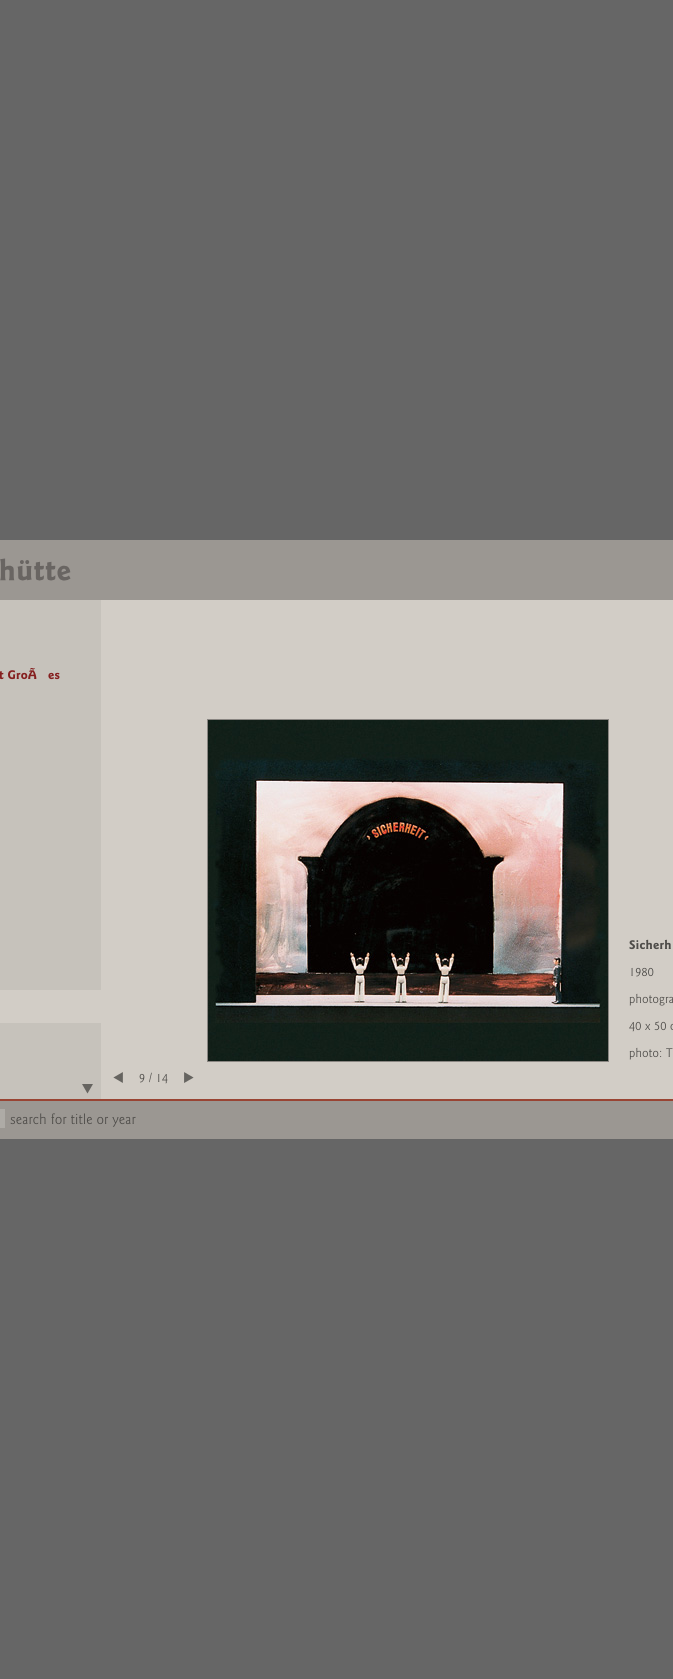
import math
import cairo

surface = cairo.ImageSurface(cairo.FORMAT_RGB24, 673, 1679)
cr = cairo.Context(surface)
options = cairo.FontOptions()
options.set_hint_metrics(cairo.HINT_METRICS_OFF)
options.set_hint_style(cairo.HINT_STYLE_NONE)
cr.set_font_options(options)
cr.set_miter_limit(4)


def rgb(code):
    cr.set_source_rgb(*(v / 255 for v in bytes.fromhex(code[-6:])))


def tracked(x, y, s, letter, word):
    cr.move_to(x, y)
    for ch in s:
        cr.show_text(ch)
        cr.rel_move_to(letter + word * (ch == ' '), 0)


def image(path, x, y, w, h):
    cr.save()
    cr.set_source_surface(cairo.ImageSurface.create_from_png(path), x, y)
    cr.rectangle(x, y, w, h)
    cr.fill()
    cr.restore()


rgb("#666666")
cr.paint()
rgb("#9b9792")
cr.rectangle(0, 540, 673, 60)
cr.fill()
image("img/1.png", 0, 558, 71, 23)
for x, y, w, h, color in [
    (101, 600, 572, 499, "#d2cdc6"),
    (0, 600, 101, 499, "#c6c2bb"),
    (0, 990, 101, 33, "#d2cdc6"),
]:
    rgb(color)
    cr.rectangle(x, y, w, h)
    cr.fill()
image("img/2.png", 82, 1084, 11, 10)
cr.rectangle(207.5, 719.5, 401, 342)
rgb("#898581")
cr.set_line_width(1)
cr.stroke()
image("img/3.png", 208, 720, 400, 341)
image("img/4.png", 631, 967, 23, 10)
image("img/5.png", 629, 993, 44, 13)
image("img/6.png", 629, 1021, 44, 11)
image("img/7.png", 629, 1047, 44, 13)
image("img/8.png", 113, 1072, 10, 11)
image("img/9.png", 139, 1072, 29, 12)
image("img/10.png", 184, 1072, 10, 11)
image("img/11.png", 0, 1099, 673, 40)
rgb("#aeaba6")
cr.rectangle(-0.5, 1108.5, 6, 20)
cr.fill_preserve()
rgb("#9b9792")
cr.stroke()
image("img/12.png", 10, 1113, 126, 14)
cr.select_font_face("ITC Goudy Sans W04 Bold", cairo.FONT_SLANT_NORMAL, cairo.FONT_WEIGHT_BOLD)
cr.set_font_size(13)
rgb("#851f1f")
tracked(-1, 679, "t GroÃ", 0.25, 0)
tracked(48, 679, "es", 0.25, 0)
rgb("#4e4c49")
tracked(629, 949, "Sicherh", 0.25, 0)
surface.write_to_png("page.png")
